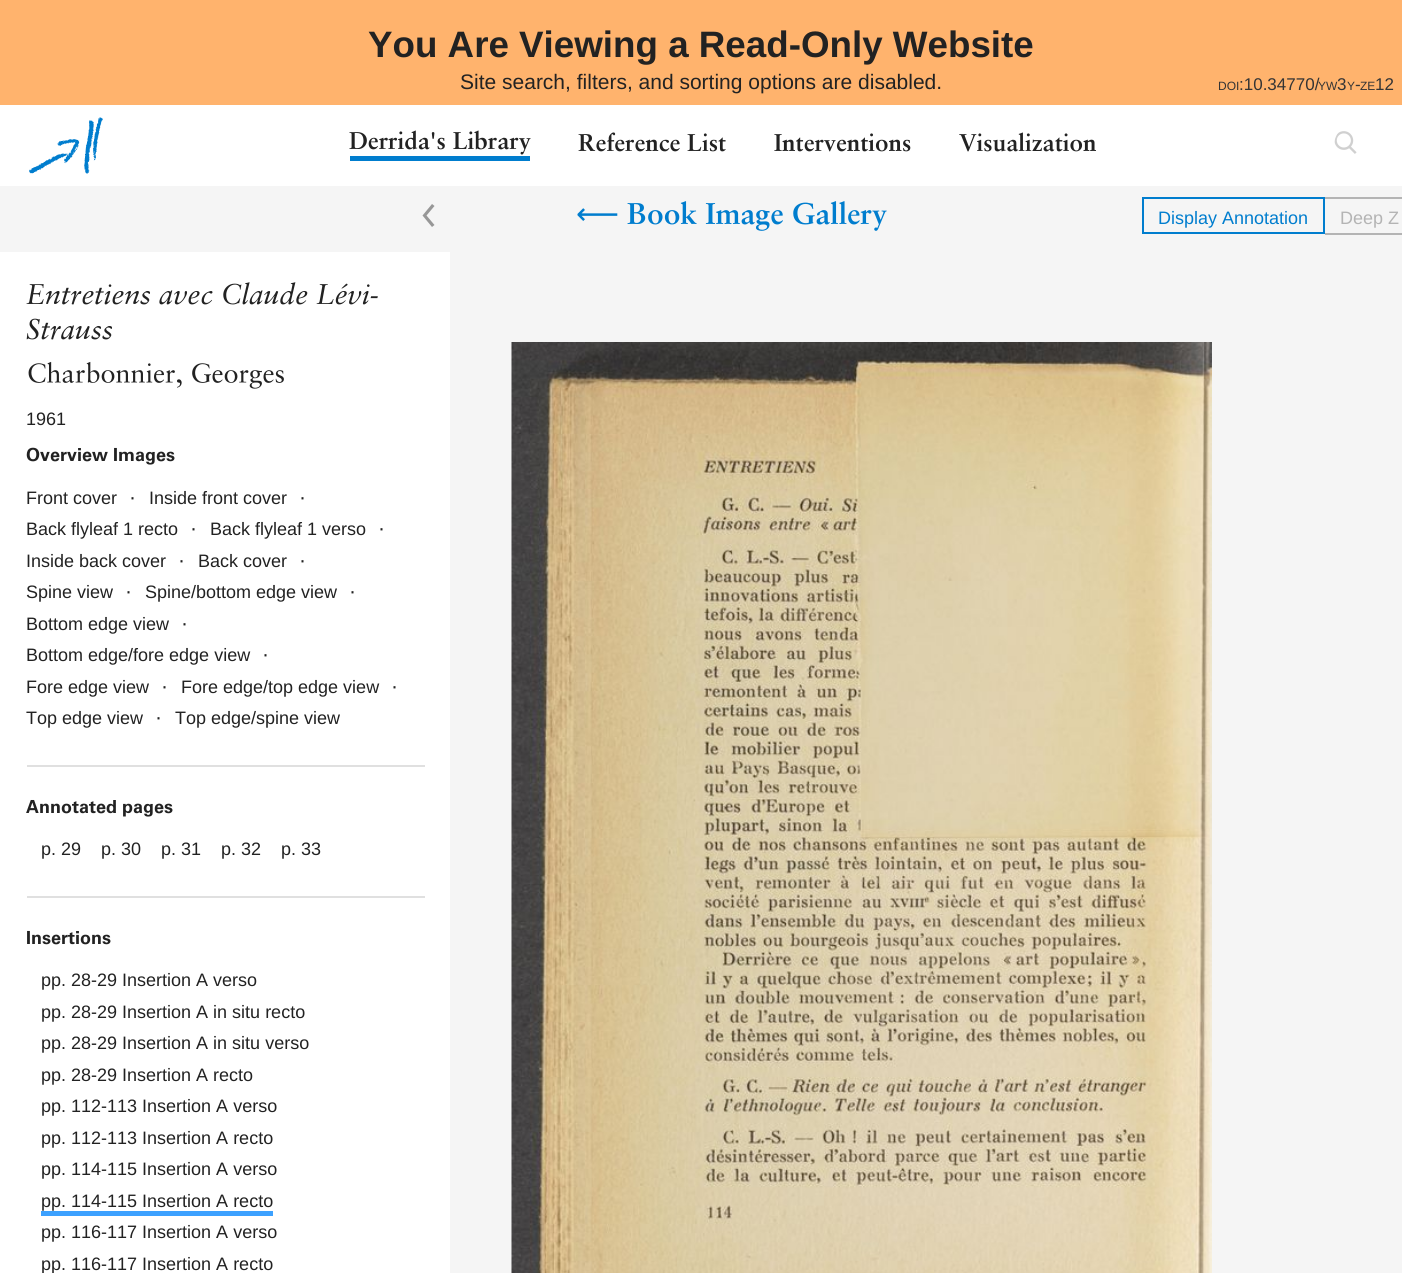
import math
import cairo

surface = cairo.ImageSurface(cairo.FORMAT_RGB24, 1402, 1273)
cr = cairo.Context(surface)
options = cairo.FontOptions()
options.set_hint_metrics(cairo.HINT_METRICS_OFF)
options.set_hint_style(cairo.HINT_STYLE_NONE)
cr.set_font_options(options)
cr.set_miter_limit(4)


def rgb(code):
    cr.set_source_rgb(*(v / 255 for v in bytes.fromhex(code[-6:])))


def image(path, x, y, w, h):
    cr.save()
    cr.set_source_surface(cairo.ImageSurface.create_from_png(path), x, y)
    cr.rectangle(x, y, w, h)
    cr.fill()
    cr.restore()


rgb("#f5f5f5")
cr.paint()
rgb("#ffb36d")
cr.rectangle(0, 0, 1402, 105)
cr.fill()
rgb("#ffffff")
cr.rectangle(0, 105, 1402, 81)
cr.fill()
image("img/1.png", 29, 117, 74, 57)
rgb("#007dce")
cr.rectangle(350, 156, 180, 5)
cr.fill()
image("img/2.png", 1334, 131, 23, 23)
rgb("#979797")
cr.new_path()
cr.move_to(422.5, 215.5)
cr.line_to(432, 204)
cr.line_to(434.5, 206)
cr.line_to(426.5, 215.5)
cr.line_to(434.5, 225)
cr.line_to(432, 227)
cr.close_path()
cr.fill()
cr.rectangle(1143, 198, 181, 35)
rgb("#007dce")
cr.stroke()
for x, y, w, h, color in [
    (1325, 197, 77, 2, "#b4b4b4"),
    (1325, 233, 77, 2, "#b4b4b4"),
    (0, 252, 450, 1021, "#ffffff"),
]:
    rgb(color)
    cr.rectangle(x, y, w, h)
    cr.fill()
image("img/3.png", 28, 361, 256, 28)
for x, y, w, h, color in [
    (27, 765, 398, 2, "#e0e0e0"),
    (27, 896, 398, 2, "#e0e0e0"),
    (41, 1211, 232, 5, "#3ca1ff"),
]:
    rgb(color)
    cr.rectangle(x, y, w, h)
    cr.fill()
image("img/4.png", 511, 342, 701, 931)
cr.select_font_face("Liberation Sans", cairo.FONT_SLANT_NORMAL, cairo.FONT_WEIGHT_BOLD)
cr.set_font_size(36.75)
rgb("#222222")
cr.move_to(368, 57)
cr.show_text("You Are Viewing a Read-Only Website")
cr.select_font_face("Liberation Sans")
cr.set_font_size(21)
cr.move_to(460, 89)
cr.show_text("Site search, filters, and sorting options are disabled.")
cr.set_font_size(12)
rgb("#343434")
cr.move_to(1218, 90)
cr.show_text("DOI")
cr.set_font_size(17)
cr.move_to(1239, 90)
cr.show_text(":10.34770/")
cr.set_font_size(12)
cr.move_to(1318, 90)
cr.show_text("YW")
cr.set_font_size(17)
cr.move_to(1337, 90)
cr.show_text("3")
cr.set_font_size(12)
cr.move_to(1347, 90)
cr.show_text("Y")
cr.set_font_size(17)
cr.move_to(1355, 90)
cr.show_text("-")
cr.set_font_size(12)
cr.move_to(1360, 90)
cr.show_text("ZE")
cr.set_font_size(17)
cr.move_to(1375, 90)
cr.show_text("12")
cr.select_font_face("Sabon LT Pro", cairo.FONT_SLANT_NORMAL, cairo.FONT_WEIGHT_BOLD)
cr.set_font_size(24.25)
rgb("#222222")
for x, y, s in [
    (349, 149, "Derrida's Library"),
    (578, 151, "Reference List"),
    (774, 151, "Interventions"),
    (959, 151, "Visualization"),
]:
    cr.move_to(x, y)
    cr.show_text(s)
cr.select_font_face("DejaVu Sans")
cr.set_font_size(30)
rgb("#007dce")
cr.move_to(576, 224)
cr.show_text("⟵")
cr.select_font_face("Sabon LT Pro", cairo.FONT_SLANT_NORMAL, cairo.FONT_WEIGHT_BOLD)
cr.move_to(627, 224)
cr.show_text("Book Image Gallery")
cr.select_font_face("Liberation Sans")
cr.set_font_size(18)
cr.move_to(1158, 224)
cr.show_text("Display Annotation")
rgb("#b4b4b4")
cr.move_to(1340, 224)
cr.show_text("Deep Z")
cr.select_font_face("Sabon LT Pro", cairo.FONT_SLANT_ITALIC)
cr.set_font_size(28.5)
rgb("#222222")
cr.move_to(26, 304)
cr.show_text("Entretiens avec Claude Lévi-")
cr.move_to(26, 339)
cr.show_text("Strauss")
cr.select_font_face("Liberation Sans")
cr.set_font_size(18)
cr.move_to(26, 425)
cr.show_text("1961")
cr.select_font_face("Univers", cairo.FONT_SLANT_NORMAL, cairo.FONT_WEIGHT_BOLD)
cr.move_to(26, 461)
cr.show_text("Overview Images")
cr.select_font_face("Liberation Sans")
cr.move_to(26, 504)
cr.show_text("Front cover")
cr.set_font_size(21)
cr.move_to(129, 504)
cr.show_text("·")
cr.set_font_size(18)
cr.move_to(149, 504)
cr.show_text("Inside front cover")
cr.set_font_size(21)
cr.move_to(299, 504)
cr.show_text("·")
cr.set_font_size(18)
cr.move_to(26, 535)
cr.show_text("Back flyleaf 1 recto")
cr.set_font_size(21)
cr.move_to(190, 535)
cr.show_text("·")
cr.set_font_size(18)
cr.move_to(210, 535)
cr.show_text("Back flyleaf 1 verso")
cr.set_font_size(21)
cr.move_to(378, 535)
cr.show_text("·")
cr.set_font_size(18)
cr.move_to(26, 567)
cr.show_text("Inside back cover")
cr.set_font_size(21)
cr.move_to(178, 567)
cr.show_text("·")
cr.set_font_size(18)
cr.move_to(198, 567)
cr.show_text("Back cover")
cr.set_font_size(21)
cr.move_to(299, 567)
cr.show_text("·")
cr.set_font_size(18)
cr.move_to(26, 598)
cr.show_text("Spine view")
cr.set_font_size(21)
cr.move_to(125, 598)
cr.show_text("·")
cr.set_font_size(18)
cr.move_to(145, 598)
cr.show_text("Spine/bottom edge view")
cr.set_font_size(21)
cr.move_to(349, 598)
cr.show_text("·")
cr.set_font_size(18)
cr.move_to(26, 630)
cr.show_text("Bottom edge view")
cr.set_font_size(21)
cr.move_to(181, 630)
cr.show_text("·")
cr.set_font_size(18)
cr.move_to(26, 661)
cr.show_text("Bottom edge/fore edge view")
cr.set_font_size(21)
cr.move_to(262, 661)
cr.show_text("·")
cr.set_font_size(18)
cr.move_to(26, 693)
cr.show_text("Fore edge view")
cr.set_font_size(21)
cr.move_to(161, 693)
cr.show_text("·")
cr.set_font_size(18)
cr.move_to(181, 693)
cr.show_text("Fore edge/top edge view")
cr.set_font_size(21)
cr.move_to(391, 693)
cr.show_text("·")
cr.set_font_size(18)
cr.move_to(26, 724)
cr.show_text("Top edge view")
cr.set_font_size(21)
cr.move_to(155, 724)
cr.show_text("·")
cr.set_font_size(18)
cr.move_to(175, 724)
cr.show_text("Top edge/spine view")
cr.select_font_face("Univers", cairo.FONT_SLANT_NORMAL, cairo.FONT_WEIGHT_BOLD)
cr.move_to(26, 813)
cr.show_text("Annotated pages")
cr.select_font_face("Liberation Sans")
for x, y, s in [
    (41, 855, "p. 29"),
    (101, 855, "p. 30"),
    (161, 855, "p. 31"),
    (221, 855, "p. 32"),
    (281, 855, "p. 33"),
]:
    cr.move_to(x, y)
    cr.show_text(s)
cr.select_font_face("Univers", cairo.FONT_SLANT_NORMAL, cairo.FONT_WEIGHT_BOLD)
cr.move_to(26, 944)
cr.show_text("Insertions")
cr.select_font_face("Liberation Sans")
for x, y, s in [
    (41, 986, "pp. 28-29 Insertion A verso"),
    (41, 1018, "pp. 28-29 Insertion A in situ recto"),
    (41, 1049, "pp. 28-29 Insertion A in situ verso"),
    (41, 1081, "pp. 28-29 Insertion A recto"),
    (41, 1112, "pp. 112-113 Insertion A verso"),
    (41, 1144, "pp. 112-113 Insertion A recto"),
    (41, 1175, "pp. 114-115 Insertion A verso"),
    (41, 1207, "pp. 114-115 Insertion A recto"),
    (41, 1238, "pp. 116-117 Insertion A verso"),
    (41, 1270, "pp. 116-117 Insertion A recto"),
]:
    cr.move_to(x, y)
    cr.show_text(s)
surface.write_to_png("page.png")
